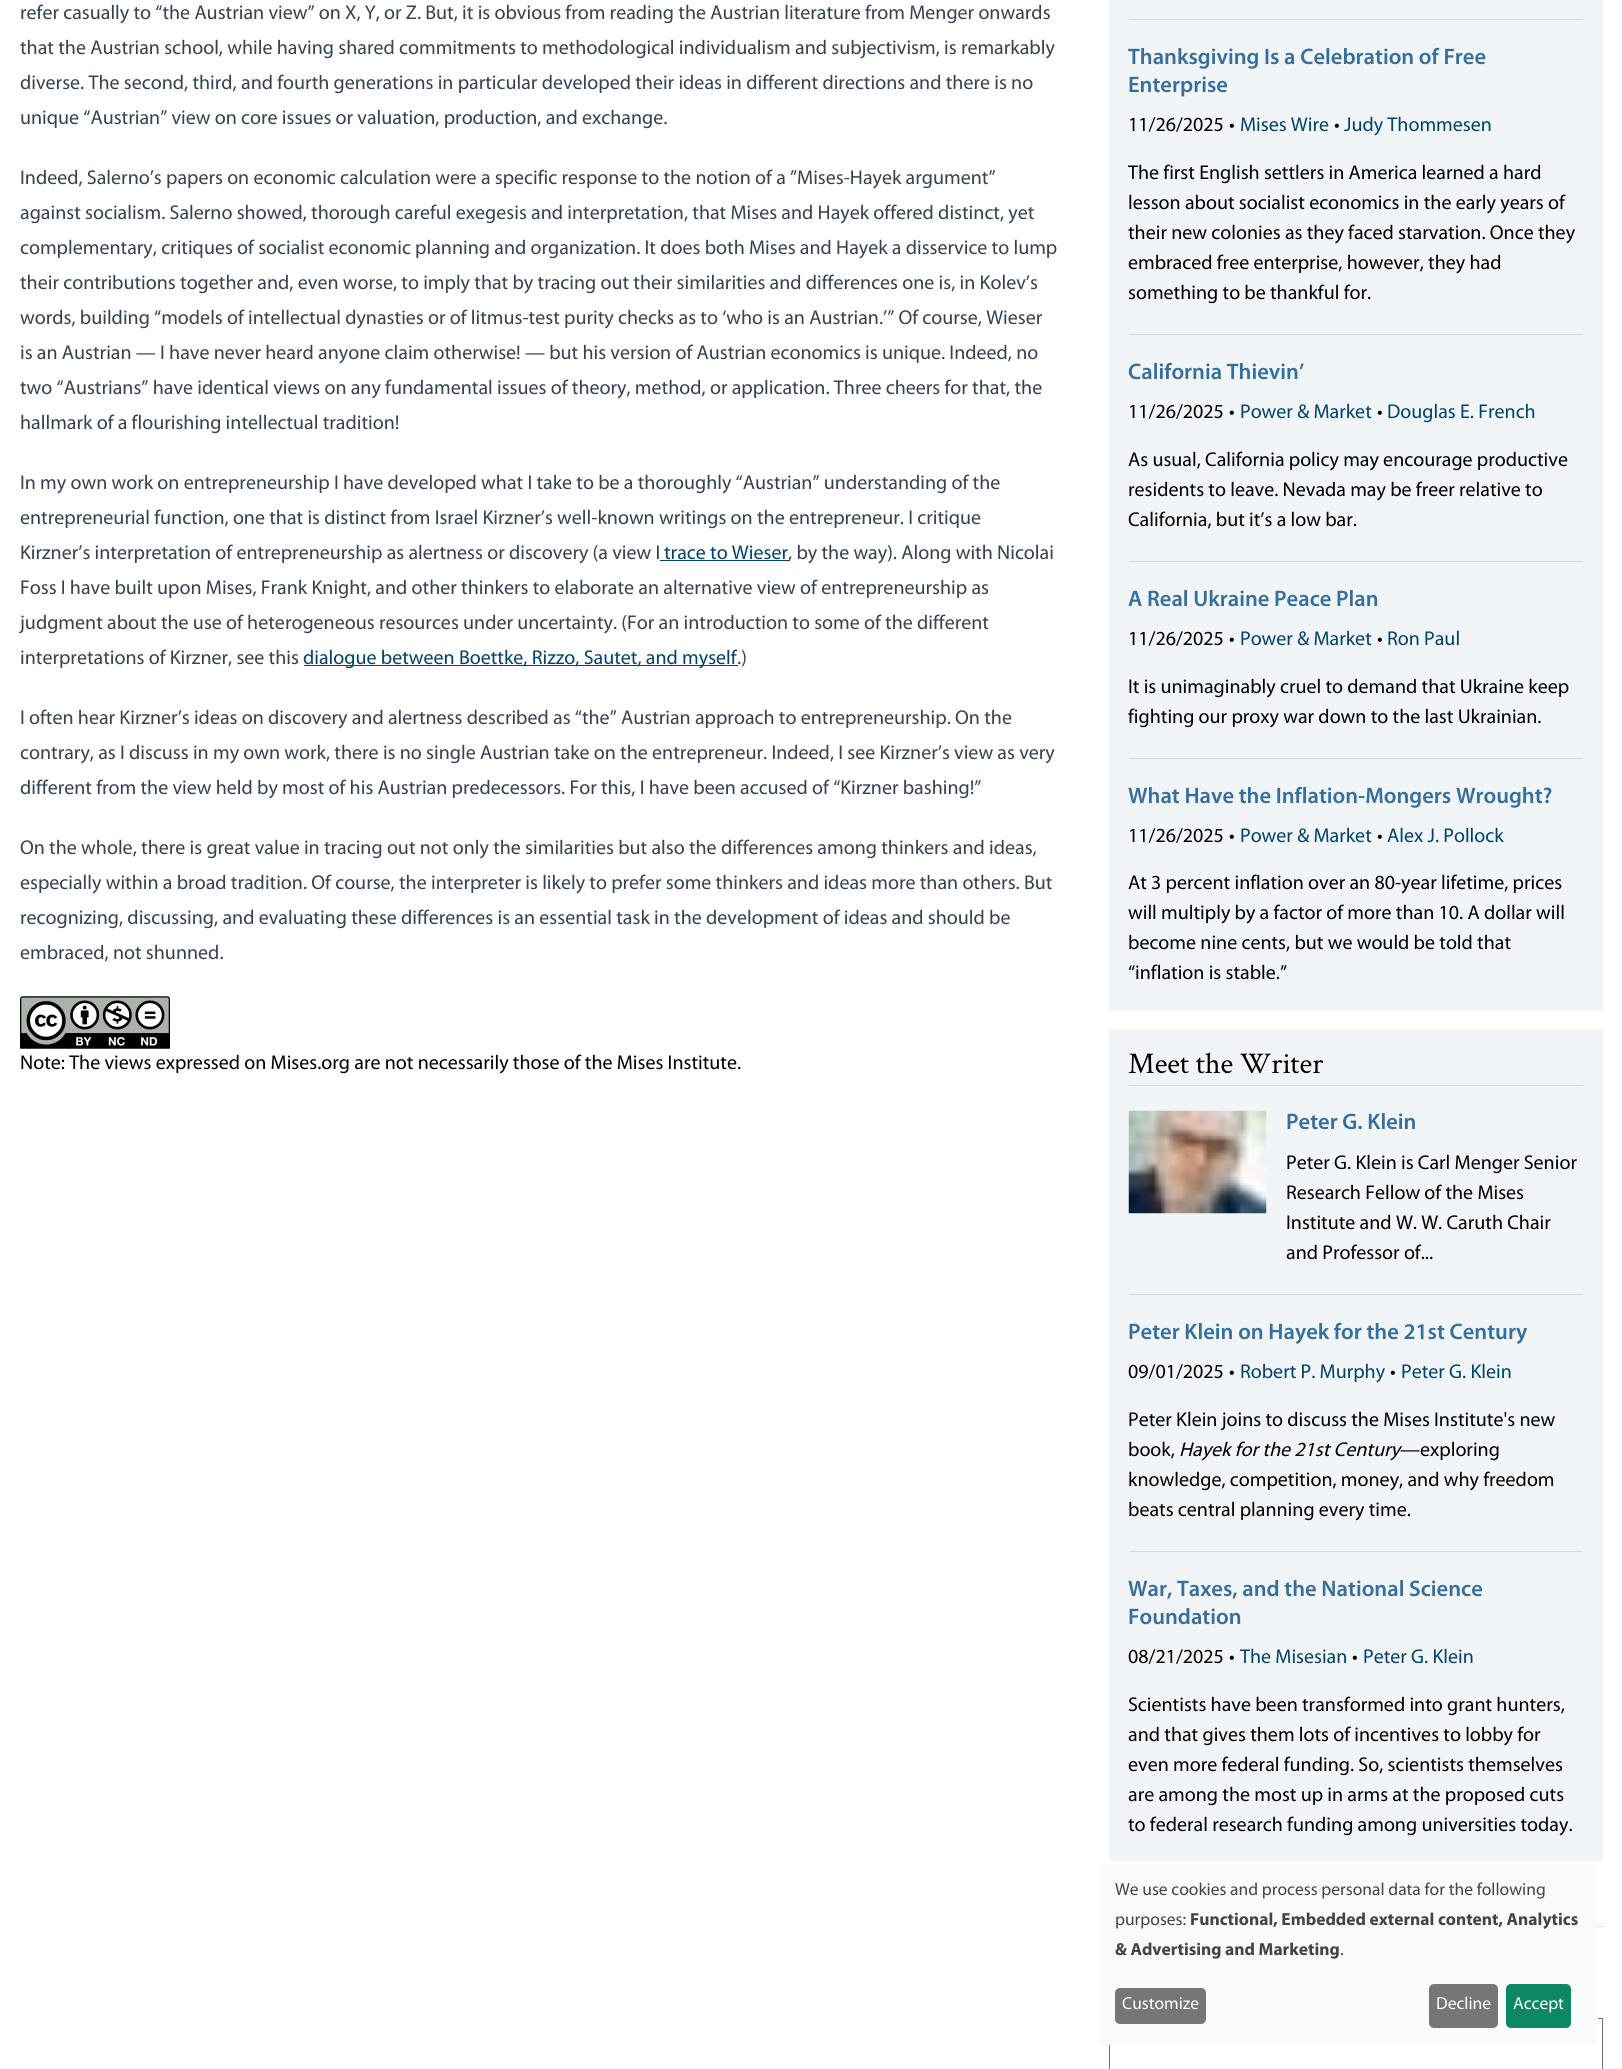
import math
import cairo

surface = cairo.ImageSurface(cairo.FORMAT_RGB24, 1622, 2069)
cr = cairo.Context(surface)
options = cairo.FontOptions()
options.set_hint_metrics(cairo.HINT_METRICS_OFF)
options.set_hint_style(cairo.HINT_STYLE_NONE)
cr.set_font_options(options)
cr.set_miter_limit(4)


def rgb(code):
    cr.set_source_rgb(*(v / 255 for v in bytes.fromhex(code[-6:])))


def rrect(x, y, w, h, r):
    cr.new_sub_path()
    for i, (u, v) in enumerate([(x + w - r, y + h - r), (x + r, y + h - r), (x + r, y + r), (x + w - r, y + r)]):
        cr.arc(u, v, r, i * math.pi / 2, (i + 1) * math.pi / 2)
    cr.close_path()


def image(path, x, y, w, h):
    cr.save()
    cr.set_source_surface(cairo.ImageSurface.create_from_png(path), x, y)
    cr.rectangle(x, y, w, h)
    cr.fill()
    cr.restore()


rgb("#ffffff")
cr.paint()
rgb("#00426b")
cr.rectangle(660, 560, 129, 1)
cr.fill()
cr.rectangle(304, 665, 434, 1)
cr.fill()
image("img/1.png", 20, 996, 150, 53)
for x, y, w, h, color in [
    (1109, 0, 494, 1010, "#f2f5f7"),
    (1129, 19, 454, 1, "#d9d9d9"),
    (1129, 334, 454, 1, "#d9d9d9"),
    (1129, 561, 454, 1, "#d9d9d9"),
    (1129, 758, 454, 1, "#d9d9d9"),
    (1109, 1030, 494, 831, "#f2f5f7"),
    (1129, 1085, 454, 1, "#d9d9d9"),
    (1129, 1294, 454, 1, "#d9d9d9"),
]:
    rgb(color)
    cr.rectangle(x, y, w, h)
    cr.fill()
image("img/2.png", 1128, 1110, 139, 104)
cr.rectangle(1129, 1551, 454, 1)
cr.fill()
cr.rectangle(1598, 1926, 5, 1)
cr.fill()
cr.rectangle(1109.5, 2018.5, 493, 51)
rgb("#6b7280")
cr.set_line_width(1)
cr.stroke()
rgb("#fafafa")
rrect(1098, 1864, 500, 181, 5)
cr.fill()
rgb("#767676")
rrect(1115, 1988, 91, 36, 5)
cr.fill()
rrect(1429, 1984, 69, 44, 5)
cr.fill()
rgb("#0e8763")
rrect(1506, 1984, 65, 44, 5)
cr.fill()
cr.select_font_face("Myriad")
cr.set_font_size(20)
rgb("#374151")
for x, y, s in [
    (20, 19, "refer casually to “the Austrian view” on X, Y, or Z. But, it is obvious from reading the Austrian literature from Menger onwards"),
    (20, 54, "that the Austrian school, while having shared commitments to methodological individualism and subjectivism, is remarkably"),
    (20, 89, "diverse. The second, third, and fourth generations in particular developed their ideas in different directions and there is no"),
    (20, 124, "unique “Austrian” view on core issues or valuation, production, and exchange."),
    (20, 184, "Indeed, Salerno’s papers on economic calculation were a specific response to the notion of a ”Mises-Hayek argument”"),
    (20, 219, "against socialism. Salerno showed, thorough careful exegesis and interpretation, that Mises and Hayek offered distinct, yet"),
    (20, 254, "complementary, critiques of socialist economic planning and organization. It does both Mises and Hayek a disservice to lump"),
    (20, 289, "their contributions together and, even worse, to imply that by tracing out their similarities and differences one is, in Kolev’s"),
    (20, 324, "words, building “models of intellectual dynasties or of litmus-test purity checks as to ‘who is an Austrian.’” Of course, Wieser"),
    (20, 359, "is an Austrian — I have never heard anyone claim otherwise! — but his version of Austrian economics is unique. Indeed, no"),
    (20, 394, "two “Austrians” have identical views on any fundamental issues of theory, method, or application. Three cheers for that, the"),
    (20, 429, "hallmark of a flourishing intellectual tradition!"),
    (20, 489, "In my own work on entrepreneurship I have developed what I take to be a thoroughly “Austrian” understanding of the"),
    (20, 524, "entrepreneurial function, one that is distinct from Israel Kirzner’s well-known writings on the entrepreneur. I critique"),
    (20, 559, "Kirzner’s interpretation of entrepreneurship as alertness or discovery (a view I"),
]:
    cr.move_to(x, y)
    cr.show_text(s)
rgb("#00426b")
cr.move_to(664, 559)
cr.show_text("trace to Wieser")
rgb("#374151")
for x, y, s in [
    (788, 559, ", by the way). Along with Nicolai"),
    (20, 594, "Foss I have built upon Mises, Frank Knight, and other thinkers to elaborate an alternative view of entrepreneurship as"),
    (20, 629, "judgment about the use of heterogeneous resources under uncertainty. (For an introduction to some of the different"),
    (20, 664, "interpretations of Kirzner, see this"),
]:
    cr.move_to(x, y)
    cr.show_text(s)
rgb("#00426b")
cr.move_to(303, 664)
cr.show_text("dialogue between Boettke, Rizzo, Sautet, and myself")
rgb("#374151")
for x, y, s in [
    (737, 664, ".)"),
    (20, 724, "I often hear Kirzner’s ideas on discovery and alertness described as “the” Austrian approach to entrepreneurship. On the"),
    (20, 759, "contrary, as I discuss in my own work, there is no single Austrian take on the entrepreneur. Indeed, I see Kirzner’s view as very"),
    (20, 794, "different from the view held by most of his Austrian predecessors. For this, I have been accused of “Kirzner bashing!”"),
    (20, 854, "On the whole, there is great value in tracing out not only the similarities but also the differences among thinkers and ideas,"),
    (20, 889, "especially within a broad tradition. Of course, the interpreter is likely to prefer some thinkers and ideas more than others. But"),
    (20, 924, "recognizing, discussing, and evaluating these differences is an essential task in the development of ideas and should be"),
    (20, 959, "embraced, not shunned."),
]:
    cr.move_to(x, y)
    cr.show_text(s)
rgb("#000000")
cr.move_to(20, 1069)
cr.show_text("Note: The views expressed on Mises.org are not necessarily those of the Mises Institute.")
cr.select_font_face("Myriad SemiBold")
cr.set_font_size(22.5)
rgb("#366e9c")
cr.move_to(1128, 64)
cr.show_text("Thanksgiving Is a Celebration of Free")
cr.move_to(1128, 92)
cr.show_text("Enterprise")
cr.select_font_face("Myriad")
cr.set_font_size(20)
rgb("#000000")
cr.move_to(1128, 131)
cr.show_text("11/26/2025")
cr.move_to(1229, 131)
cr.show_text("•")
rgb("#00426b")
cr.move_to(1240, 131)
cr.show_text("Mises Wire")
rgb("#000000")
cr.move_to(1334, 131)
cr.show_text("•")
rgb("#00426b")
cr.move_to(1344, 131)
cr.show_text("Judy Thommesen")
rgb("#000000")
for x, y, s in [
    (1128, 179, "The first English settlers in America learned a hard"),
    (1128, 209, "lesson about socialist economics in the early years of"),
    (1128, 239, "their new colonies as they faced starvation. Once they"),
    (1128, 269, "embraced free enterprise, however, they had"),
    (1128, 299, "something to be thankful for."),
]:
    cr.move_to(x, y)
    cr.show_text(s)
cr.select_font_face("Myriad SemiBold")
cr.set_font_size(22.5)
rgb("#366e9c")
cr.move_to(1128, 379)
cr.show_text("California Thievin’")
cr.select_font_face("Myriad")
cr.set_font_size(20)
rgb("#000000")
cr.move_to(1128, 418)
cr.show_text("11/26/2025")
cr.move_to(1229, 418)
cr.show_text("•")
rgb("#00426b")
cr.move_to(1240, 418)
cr.show_text("Power & Market")
rgb("#000000")
cr.move_to(1377, 418)
cr.show_text("•")
rgb("#00426b")
cr.move_to(1387, 418)
cr.show_text("Douglas E. French")
rgb("#000000")
for x, y, s in [
    (1128, 466, "As usual, California policy may encourage productive"),
    (1128, 496, "residents to leave. Nevada may be freer relative to"),
    (1128, 526, "California, but it’s a low bar."),
]:
    cr.move_to(x, y)
    cr.show_text(s)
cr.select_font_face("Myriad SemiBold")
cr.set_font_size(22.5)
rgb("#366e9c")
cr.move_to(1128, 606)
cr.show_text("A Real Ukraine Peace Plan")
cr.select_font_face("Myriad")
cr.set_font_size(20)
rgb("#000000")
cr.move_to(1128, 645)
cr.show_text("11/26/2025")
cr.move_to(1229, 645)
cr.show_text("•")
rgb("#00426b")
cr.move_to(1240, 645)
cr.show_text("Power & Market")
rgb("#000000")
cr.move_to(1377, 645)
cr.show_text("•")
rgb("#00426b")
cr.move_to(1387, 645)
cr.show_text("Ron Paul")
rgb("#000000")
cr.move_to(1128, 693)
cr.show_text("It is unimaginably cruel to demand that Ukraine keep")
cr.move_to(1128, 723)
cr.show_text("fighting our proxy war down to the last Ukrainian.")
cr.select_font_face("Myriad SemiBold")
cr.set_font_size(22.5)
rgb("#366e9c")
cr.move_to(1128, 803)
cr.show_text("What Have the Inflation-Mongers Wrought?")
cr.select_font_face("Myriad")
cr.set_font_size(20)
rgb("#000000")
cr.move_to(1128, 842)
cr.show_text("11/26/2025")
cr.move_to(1229, 842)
cr.show_text("•")
rgb("#00426b")
cr.move_to(1240, 842)
cr.show_text("Power & Market")
rgb("#000000")
cr.move_to(1377, 842)
cr.show_text("•")
rgb("#00426b")
cr.move_to(1387, 842)
cr.show_text("Alex J. Pollock")
rgb("#000000")
for x, y, s in [
    (1128, 889, "At 3 percent inflation over an 80-year lifetime, prices"),
    (1128, 919, "will multiply by a factor of more than 10. A dollar will"),
    (1128, 949, "become nine cents, but we would be told that"),
    (1128, 979, "“inflation is stable.”"),
]:
    cr.move_to(x, y)
    cr.show_text(s)
cr.select_font_face("Crimson Text")
cr.set_font_size(30)
cr.move_to(1128, 1073)
cr.show_text("Meet the Writer")
cr.select_font_face("Myriad SemiBold")
cr.set_font_size(22.5)
rgb("#366e9c")
cr.move_to(1286, 1129)
cr.show_text("Peter G. Klein")
cr.select_font_face("Myriad")
cr.set_font_size(20)
rgb("#000000")
for x, y, s in [
    (1286, 1169, "Peter G. Klein is Carl Menger Senior"),
    (1286, 1199, "Research Fellow of the Mises"),
    (1286, 1229, "Institute and W. W. Caruth Chair"),
    (1286, 1259, "and Professor of..."),
]:
    cr.move_to(x, y)
    cr.show_text(s)
cr.select_font_face("Myriad SemiBold")
cr.set_font_size(22.5)
rgb("#366e9c")
cr.move_to(1128, 1339)
cr.show_text("Peter Klein on Hayek for the 21st Century")
cr.select_font_face("Myriad")
cr.set_font_size(20)
rgb("#000000")
cr.move_to(1128, 1378)
cr.show_text("09/01/2025")
cr.move_to(1229, 1378)
cr.show_text("•")
rgb("#00426b")
cr.move_to(1240, 1378)
cr.show_text("Robert P. Murphy")
rgb("#000000")
cr.move_to(1390, 1378)
cr.show_text("•")
rgb("#00426b")
cr.move_to(1401, 1378)
cr.show_text("Peter G. Klein")
rgb("#000000")
cr.move_to(1128, 1426)
cr.show_text("Peter Klein joins to discuss the Mises Institute's new")
cr.move_to(1128, 1456)
cr.show_text("book,")
cr.select_font_face("Myriad", cairo.FONT_SLANT_ITALIC)
cr.move_to(1179, 1456)
cr.show_text("Hayek for the 21st Century")
cr.select_font_face("Myriad")
for x, y, s in [
    (1400, 1456, "—exploring"),
    (1128, 1486, "knowledge, competition, money, and why freedom"),
    (1128, 1516, "beats central planning every time."),
]:
    cr.move_to(x, y)
    cr.show_text(s)
cr.select_font_face("Myriad SemiBold")
cr.set_font_size(22.5)
rgb("#366e9c")
cr.move_to(1128, 1596)
cr.show_text("War, Taxes, and the National Science")
cr.move_to(1128, 1624)
cr.show_text("Foundation")
cr.select_font_face("Myriad")
cr.set_font_size(20)
rgb("#000000")
cr.move_to(1128, 1663)
cr.show_text("08/21/2025")
cr.move_to(1229, 1663)
cr.show_text("•")
rgb("#00426b")
cr.move_to(1240, 1663)
cr.show_text("The Misesian")
rgb("#000000")
cr.move_to(1352, 1663)
cr.show_text("•")
rgb("#00426b")
cr.move_to(1363, 1663)
cr.show_text("Peter G. Klein")
rgb("#000000")
for x, y, s in [
    (1128, 1711, "Scientists have been transformed into grant hunters,"),
    (1128, 1741, "and that gives them lots of incentives to lobby for"),
    (1128, 1771, "even more federal funding. So, scientists themselves"),
    (1128, 1801, "are among the most up in arms at the proposed cuts"),
    (1128, 1831, "to federal research funding among universities today."),
]:
    cr.move_to(x, y)
    cr.show_text(s)
cr.set_font_size(17.5)
rgb("#444444")
cr.move_to(1115, 1895)
cr.show_text("We use cookies and process personal data for the following")
cr.move_to(1115, 1925)
cr.show_text("purposes:")
cr.select_font_face("Myriad", cairo.FONT_SLANT_NORMAL, cairo.FONT_WEIGHT_BOLD)
cr.move_to(1190, 1925)
cr.show_text("Functional, Embedded external content, Analytics")
cr.move_to(1115, 1955)
cr.show_text("& Advertising and Marketing")
cr.select_font_face("Myriad")
cr.move_to(1340, 1955)
cr.show_text(".")
rgb("#ffffff")
for x, y, s in [
    (1122, 2009, "Customize"),
    (1436, 2009, "Decline"),
    (1513, 2009, "Accept"),
]:
    cr.move_to(x, y)
    cr.show_text(s)
surface.write_to_png("page.png")
